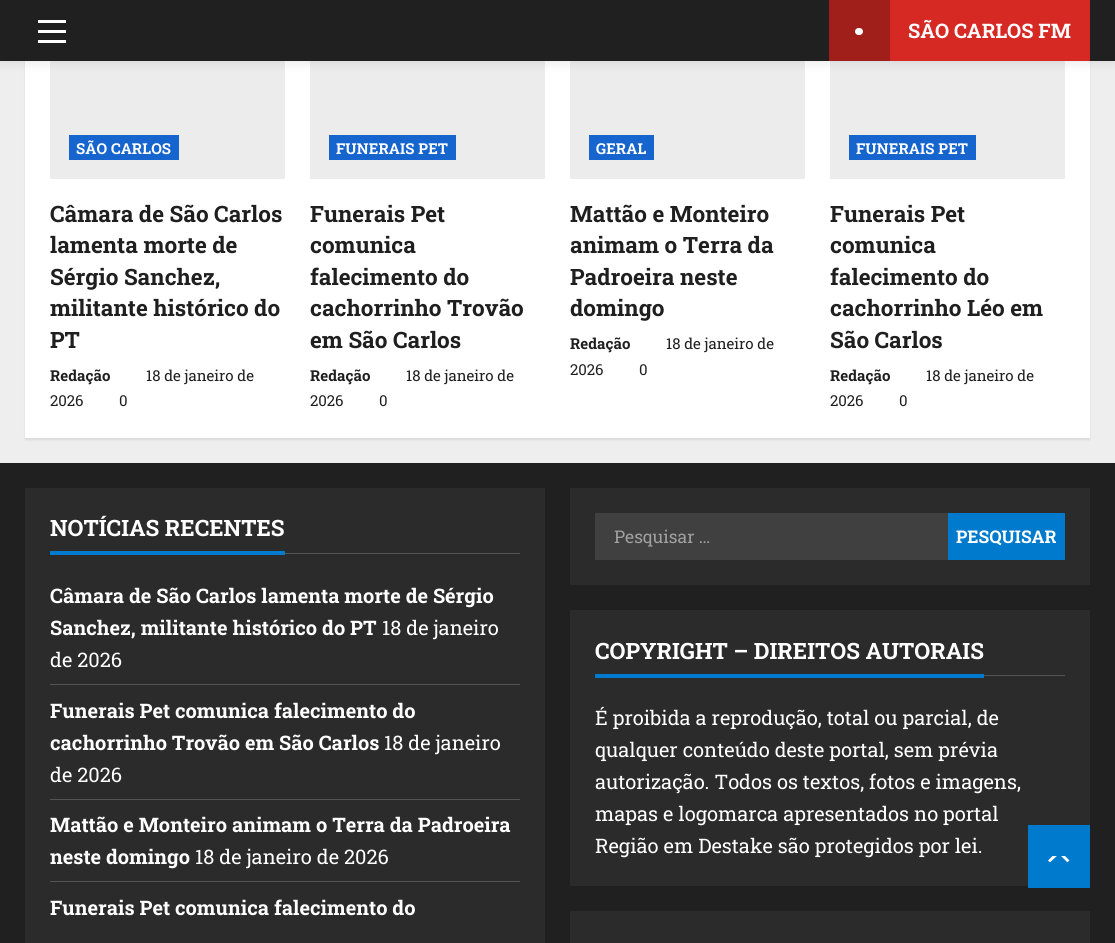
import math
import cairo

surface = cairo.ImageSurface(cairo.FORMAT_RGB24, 1115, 943)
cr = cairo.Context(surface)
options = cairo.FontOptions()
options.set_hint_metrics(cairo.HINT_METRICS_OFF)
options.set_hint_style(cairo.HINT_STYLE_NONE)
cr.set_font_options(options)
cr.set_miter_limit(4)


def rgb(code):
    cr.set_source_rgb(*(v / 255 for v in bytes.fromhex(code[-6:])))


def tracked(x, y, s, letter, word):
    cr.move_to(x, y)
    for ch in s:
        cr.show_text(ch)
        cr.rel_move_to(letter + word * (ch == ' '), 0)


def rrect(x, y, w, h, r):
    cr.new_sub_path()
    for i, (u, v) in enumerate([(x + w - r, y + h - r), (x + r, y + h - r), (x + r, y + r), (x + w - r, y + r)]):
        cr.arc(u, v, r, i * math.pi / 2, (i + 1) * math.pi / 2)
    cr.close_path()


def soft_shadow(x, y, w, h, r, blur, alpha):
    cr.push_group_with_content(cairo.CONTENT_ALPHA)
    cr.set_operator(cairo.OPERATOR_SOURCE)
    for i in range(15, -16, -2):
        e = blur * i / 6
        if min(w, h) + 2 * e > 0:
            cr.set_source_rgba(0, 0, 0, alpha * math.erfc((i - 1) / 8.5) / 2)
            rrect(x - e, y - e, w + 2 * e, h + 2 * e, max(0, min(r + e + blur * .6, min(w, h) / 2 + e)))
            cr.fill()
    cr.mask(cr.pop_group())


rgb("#eeeeee")
cr.paint()
rgb("#000000")
soft_shadow(25, -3, 1065, 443, 0, 1, 0.08)
for x, y, w, h, color in [
    (25, 61, 1065, 377, "#ffffff"),
    (50, 61, 235, 118, "#ececec"),
    (310, 61, 235, 118, "#ececec"),
    (570, 61, 235, 118, "#ececec"),
    (830, 61, 235, 118, "#ececec"),
]:
    rgb(color)
    cr.rectangle(x, y, w, h)
    cr.fill()
rgb("#000000")
soft_shadow(0, 3, 1115, 61, 0, 5, 0.08)
for x, y, w, h, color in [
    (0, 0, 1115, 61, "#202020"),
    (38, 30, 28, 3, "#ffffff"),
    (38, 20, 28, 3, "#ffffff"),
    (38, 40, 28, 3, "#ffffff"),
    (890, 0, 200, 61, "#d72924"),
    (829, 0, 61, 61, "#a11f1b"),
]:
    rgb(color)
    cr.rectangle(x, y, w, h)
    cr.fill()
rgb("#ffffff")
rrect(855, 28, 8, 7, 3.5)
cr.fill()
for x, y, w, h, color in [
    (69, 135, 110, 25, "#1665cf"),
    (329, 135, 127, 25, "#1665cf"),
    (589, 135, 65, 25, "#1665cf"),
    (849, 135, 127, 25, "#1665cf"),
    (0, 463, 1115, 480, "#202020"),
    (25, 488, 520, 455, "#2b2b2b"),
    (285, 553, 235, 1, "#555555"),
    (50, 551, 235, 4, "#007acc"),
    (50, 684, 470, 1, "#555555"),
    (50, 799, 470, 1, "#555555"),
    (50, 881, 470, 1, "#555555"),
    (570, 488, 520, 97, "#2b2b2b"),
    (595, 513, 353, 47, "#404040"),
    (948, 513, 117, 47, "#007acc"),
    (570, 610, 520, 276, "#2b2b2b"),
    (984, 675, 81, 1, "#555555"),
    (595, 674, 389, 4, "#007acc"),
    (570, 911, 520, 32, "#2b2b2b"),
    (1028, 825, 62, 63, "#007acc"),
]:
    rgb(color)
    cr.rectangle(x, y, w, h)
    cr.fill()
rgb("#ffffff")
cr.new_path()
cr.move_to(1052.5, 862.5)
cr.line_to(1065, 862.5)
cr.curve_to(1067, 862.5, 1068, 862, 1069.5, 860.5)
cr.line_to(1065, 856)
cr.line_to(1052.5, 856)
cr.line_to(1048, 860.5)
cr.curve_to(1049, 862, 1051, 862.5, 1052.5, 862.5)
cr.close_path()
cr.fill()
rgb("#007acc")
cr.new_path()
cr.move_to(1071, 866)
cr.line_to(1046, 866)
cr.line_to(1059, 854)
cr.close_path()
cr.fill()
cr.select_font_face("Roboto Slab", cairo.FONT_SLANT_NORMAL, cairo.FONT_WEIGHT_BOLD)
cr.set_font_size(20)
rgb("#ffffff")
cr.move_to(908, 38)
cr.show_text("SÃO CARLOS FM")
cr.set_font_size(15)
tracked(76, 154, "SÃO CARLOS", 0.1, 0)
cr.set_font_size(22.5)
rgb("#1f1f1f")
for x, y, s in [
    (50, 222, "Câmara de São Carlos"),
    (50, 253, "lamenta morte de"),
    (50, 285, "Sérgio Sanchez,"),
    (50, 316, "militante histórico do"),
    (50, 348, "PT"),
]:
    cr.move_to(x, y)
    cr.show_text(s)
cr.set_font_size(15)
cr.move_to(50, 381)
cr.show_text("Redação")
cr.select_font_face("Roboto Slab")
for x, y, s in [
    (146, 381, "18 de janeiro de"),
    (50, 406, "2026"),
    (119, 406, "0"),
]:
    cr.move_to(x, y)
    cr.show_text(s)
cr.select_font_face("Roboto Slab", cairo.FONT_SLANT_NORMAL, cairo.FONT_WEIGHT_BOLD)
rgb("#ffffff")
tracked(336, 154, "FUNERAIS PET", 0.1, 0)
cr.set_font_size(22.5)
rgb("#1f1f1f")
for x, y, s in [
    (310, 222, "Funerais Pet"),
    (310, 253, "comunica"),
    (310, 285, "falecimento do"),
    (310, 316, "cachorrinho Trovão"),
    (310, 348, "em São Carlos"),
]:
    cr.move_to(x, y)
    cr.show_text(s)
cr.set_font_size(15)
cr.move_to(310, 381)
cr.show_text("Redação")
cr.select_font_face("Roboto Slab")
for x, y, s in [
    (406, 381, "18 de janeiro de"),
    (310, 406, "2026"),
    (379, 406, "0"),
]:
    cr.move_to(x, y)
    cr.show_text(s)
cr.select_font_face("Roboto Slab", cairo.FONT_SLANT_NORMAL, cairo.FONT_WEIGHT_BOLD)
rgb("#ffffff")
tracked(596, 154, "GERAL", 0.1, 0)
cr.set_font_size(22.5)
rgb("#1f1f1f")
for x, y, s in [
    (570, 222, "Mattão e Monteiro"),
    (570, 253, "animam o Terra da"),
    (570, 285, "Padroeira neste"),
    (570, 316, "domingo"),
]:
    cr.move_to(x, y)
    cr.show_text(s)
cr.set_font_size(15)
cr.move_to(570, 349)
cr.show_text("Redação")
cr.select_font_face("Roboto Slab")
for x, y, s in [
    (666, 349, "18 de janeiro de"),
    (570, 375, "2026"),
    (639, 375, "0"),
]:
    cr.move_to(x, y)
    cr.show_text(s)
cr.select_font_face("Roboto Slab", cairo.FONT_SLANT_NORMAL, cairo.FONT_WEIGHT_BOLD)
rgb("#ffffff")
tracked(856, 154, "FUNERAIS PET", 0.1, 0)
cr.set_font_size(22.5)
rgb("#1f1f1f")
for x, y, s in [
    (830, 222, "Funerais Pet"),
    (830, 253, "comunica"),
    (830, 285, "falecimento do"),
    (830, 316, "cachorrinho Léo em"),
    (830, 348, "São Carlos"),
]:
    cr.move_to(x, y)
    cr.show_text(s)
cr.set_font_size(15)
cr.move_to(830, 381)
cr.show_text("Redação")
cr.select_font_face("Roboto Slab")
for x, y, s in [
    (926, 381, "18 de janeiro de"),
    (830, 406, "2026"),
    (899, 406, "0"),
]:
    cr.move_to(x, y)
    cr.show_text(s)
cr.select_font_face("Roboto Slab", cairo.FONT_SLANT_NORMAL, cairo.FONT_WEIGHT_BOLD)
cr.set_font_size(22.5)
rgb("#ffffff")
cr.move_to(50, 536)
cr.show_text("NOTÍCIAS RECENTES")
cr.set_font_size(20)
cr.move_to(50, 603)
cr.show_text("Câmara de São Carlos lamenta morte de Sérgio")
cr.move_to(50, 635)
cr.show_text("Sanchez, militante histórico do PT")
cr.select_font_face("Roboto Slab")
cr.move_to(382, 635)
cr.show_text("18 de janeiro")
cr.move_to(50, 667)
cr.show_text("de 2026")
cr.select_font_face("Roboto Slab", cairo.FONT_SLANT_NORMAL, cairo.FONT_WEIGHT_BOLD)
cr.move_to(50, 718)
cr.show_text("Funerais Pet comunica falecimento do")
cr.move_to(50, 750)
cr.show_text("cachorrinho Trovão em São Carlos")
cr.select_font_face("Roboto Slab")
cr.move_to(384, 750)
cr.show_text("18 de janeiro")
cr.move_to(50, 782)
cr.show_text("de 2026")
cr.select_font_face("Roboto Slab", cairo.FONT_SLANT_NORMAL, cairo.FONT_WEIGHT_BOLD)
cr.move_to(50, 832)
cr.show_text("Mattão e Monteiro animam o Terra da Padroeira")
cr.move_to(50, 864)
cr.show_text("neste domingo")
cr.select_font_face("Roboto Slab")
cr.move_to(195, 864)
cr.show_text("18 de janeiro de 2026")
cr.select_font_face("Roboto Slab", cairo.FONT_SLANT_NORMAL, cairo.FONT_WEIGHT_BOLD)
cr.move_to(50, 915)
cr.show_text("Funerais Pet comunica falecimento do")
cr.select_font_face("Roboto Slab")
cr.set_font_size(17.5)
rgb("#a0a0a0")
cr.move_to(614, 543)
cr.show_text("Pesquisar …")
cr.select_font_face("Roboto Slab", cairo.FONT_SLANT_NORMAL, cairo.FONT_WEIGHT_BOLD)
rgb("#ffffff")
cr.move_to(956, 543)
cr.show_text("PESQUISAR")
cr.set_font_size(22.5)
cr.move_to(595, 659)
cr.show_text("COPYRIGHT – DIREITOS AUTORAIS")
cr.select_font_face("Roboto Slab")
cr.set_font_size(20)
for x, y, s in [
    (595, 725, "É proibida a reprodução, total ou parcial, de"),
    (595, 757, "qualquer conteúdo deste portal, sem prévia"),
    (595, 789, "autorização. Todos os textos, fotos e imagens,"),
    (595, 821, "mapas e logomarca apresentados no portal"),
    (595, 853, "Região em Destake são protegidos por lei."),
]:
    cr.move_to(x, y)
    cr.show_text(s)
surface.write_to_png("page.png")
